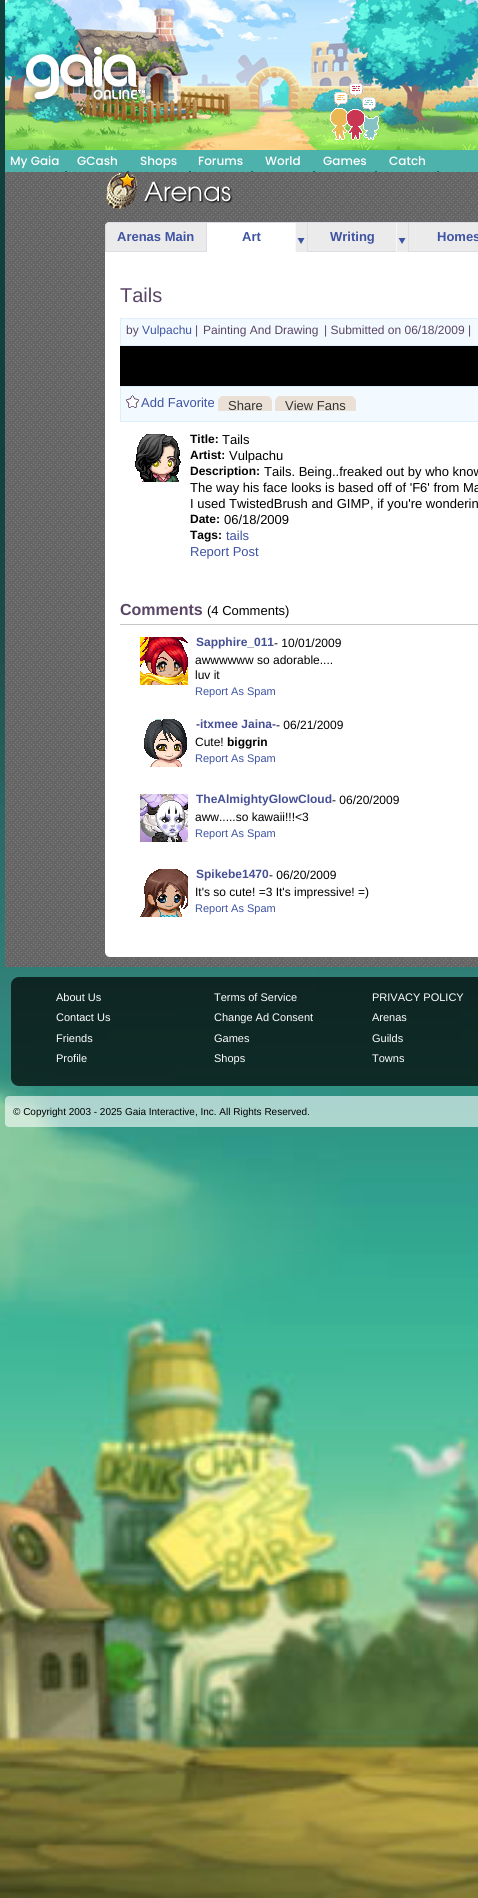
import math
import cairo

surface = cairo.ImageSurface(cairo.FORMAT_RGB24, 478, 1898)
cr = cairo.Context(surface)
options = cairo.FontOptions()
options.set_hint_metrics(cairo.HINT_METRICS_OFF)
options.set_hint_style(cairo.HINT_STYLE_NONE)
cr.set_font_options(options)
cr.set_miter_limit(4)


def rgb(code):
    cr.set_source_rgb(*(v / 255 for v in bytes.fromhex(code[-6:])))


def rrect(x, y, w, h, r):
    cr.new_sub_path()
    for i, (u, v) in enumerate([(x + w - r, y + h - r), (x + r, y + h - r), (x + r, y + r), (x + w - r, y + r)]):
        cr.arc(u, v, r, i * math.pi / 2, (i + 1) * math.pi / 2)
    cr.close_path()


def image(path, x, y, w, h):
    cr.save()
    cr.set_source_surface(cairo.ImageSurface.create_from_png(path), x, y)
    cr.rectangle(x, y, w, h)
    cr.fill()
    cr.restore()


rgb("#12403d")
cr.paint()
image("img/1.png", 0, 113, 478, 1785)
image("img/2.png", 5, 0, 473, 150)
image("img/3.png", 26, 46, 119, 54)
image("img/4.png", 330, 83, 49, 57)
for x, y, w, h, color in [
    (5, 150, 473, 22, "#4db1ac"),
    (65, 171, 2, 1, "#265f62"),
    (127, 171, 2, 1, "#265f62"),
    (189, 171, 2, 1, "#265f62"),
    (251, 171, 2, 1, "#265f62"),
    (313, 171, 2, 1, "#265f62"),
    (375, 171, 2, 1, "#265f62"),
    (437, 171, 2, 1, "#265f62"),
]:
    rgb(color)
    cr.rectangle(x, y, w, h)
    cr.fill()
image("img/5.png", 5, 172, 473, 795)
image("img/6.png", 106, 172, 127, 37)
rgb("#ffffff")
rrect(105, 222, 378, 735, 5)
cr.fill()
rgb("#ebebeb")
cr.new_path()
cr.move_to(110, 222)
cr.line_to(207, 222)
cr.line_to(207, 252)
cr.line_to(105, 252)
cr.line_to(105, 227)
cr.curve_to(105, 224, 107, 222, 110, 222)
cr.close_path()
cr.fill()
rgb("#dcdee3")
cr.new_path()
cr.move_to(110, 222)
cr.line_to(107, 223)
cr.line_to(206, 223)
cr.line_to(206, 251)
cr.line_to(106, 251)
cr.line_to(106, 224)
cr.curve_to(105, 225, 105, 226, 105, 227)
cr.line_to(105, 252)
cr.line_to(207, 252)
cr.line_to(207, 222)
cr.close_path()
cr.fill()
cr.rectangle(206, 222, 102, 1)
cr.fill()
image("img/7.png", 295, 223, 12, 29)
rgb("#ebebeb")
cr.rectangle(308, 223, 88, 28)
cr.fill()
cr.rectangle(307.5, 222.5, 101, 29)
rgb("#dcdee3")
cr.set_line_width(1)
cr.stroke()
image("img/7.png", 396, 223, 12, 29)
rgb("#ebebeb")
cr.rectangle(408.5, 222.5, 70, 29)
cr.fill_preserve()
rgb("#dcdee3")
cr.stroke()
rgb("#f3faff")
cr.rectangle(120.5, 318.5, 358, 27)
cr.fill_preserve()
rgb("#ddeeff")
cr.stroke()
rgb("#000000")
cr.rectangle(120, 346, 358, 40)
cr.fill()
rgb("#f3faff")
cr.rectangle(120.5, 386.5, 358, 35)
cr.fill_preserve()
rgb("#ddeeff")
cr.stroke()
image("img/8.png", 126, 395, 13, 13)
image("img/9.png", 251, 396, 21, 15)
image("img/10.png", 218, 396, 33, 15)
image("img/11.png", 334, 396, 22, 15)
image("img/12.png", 275, 396, 59, 15)
image("img/13.png", 135, 434, 46, 48)
rgb("#c5c7c9")
cr.rectangle(120, 624, 358, 1)
cr.fill()
image("img/14.png", 140, 637, 48, 48)
image("img/15.png", 144, 719, 43, 48)
image("img/16.png", 140, 794, 48, 48)
image("img/17.png", 140, 869, 48, 48)
cr.set_source_rgba(0, 0, 0, 0.7)
rrect(11, 977, 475, 109, 8)
cr.fill()
cr.set_source_rgba(1, 1, 1, 0.6)
rrect(5, 1096, 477, 31, 4)
cr.fill()
cr.select_font_face("Poppins Medium")
cr.set_font_size(12)
rgb("#ffffff")
for x, y, s in [
    (10, 165, "My Gaia"),
    (77, 165, "GCash"),
    (140, 165, "Shops"),
    (198, 165, "Forums"),
    (265, 165, "World"),
    (323, 165, "Games"),
    (389, 165, "Catch"),
]:
    cr.move_to(x, y)
    cr.show_text(s)
cr.select_font_face("Liberation Sans", cairo.FONT_SLANT_NORMAL, cairo.FONT_WEIGHT_BOLD)
cr.set_font_size(13)
rgb("#3e53a2")
for x, y, s in [
    (117, 241, "Arenas Main"),
    (242, 241, "Art"),
    (330, 241, "Writing"),
    (437, 241, "Homes"),
]:
    cr.move_to(x, y)
    cr.show_text(s)
cr.select_font_face("Liberation Sans")
cr.set_font_size(20)
rgb("#5a4564")
cr.move_to(120, 302)
cr.show_text("Tails")
cr.set_font_size(12)
cr.move_to(126, 334)
cr.show_text("by")
rgb("#3e53a2")
cr.move_to(142, 334)
cr.show_text("Vulpachu")
rgb("#5a4564")
for x, y, s in [
    (195, 334, "|"),
    (203, 334, "Painting And Drawing"),
    (324, 334, "| Submitted on 06/18/2009 |"),
]:
    cr.move_to(x, y)
    cr.show_text(s)
cr.set_font_size(13)
rgb("#3e53a2")
cr.move_to(141, 407)
cr.show_text("Add Favorite")
rgb("#333333")
cr.move_to(228, 410)
cr.show_text("Share")
cr.move_to(285, 410)
cr.show_text("View Fans")
cr.select_font_face("Liberation Sans", cairo.FONT_SLANT_NORMAL, cairo.FONT_WEIGHT_BOLD)
cr.set_font_size(12)
rgb("#000000")
cr.move_to(190, 443)
cr.show_text("Title:")
cr.select_font_face("Liberation Sans")
cr.set_font_size(13)
cr.move_to(222, 444)
cr.show_text("Tails")
cr.select_font_face("Liberation Sans", cairo.FONT_SLANT_NORMAL, cairo.FONT_WEIGHT_BOLD)
cr.set_font_size(12)
cr.move_to(190, 459)
cr.show_text("Artist:")
cr.select_font_face("Liberation Sans")
cr.set_font_size(13)
cr.move_to(229, 460)
cr.show_text("Vulpachu")
cr.select_font_face("Liberation Sans", cairo.FONT_SLANT_NORMAL, cairo.FONT_WEIGHT_BOLD)
cr.set_font_size(12)
cr.move_to(190, 475)
cr.show_text("Description:")
cr.select_font_face("Liberation Sans")
cr.set_font_size(13)
for x, y, s in [
    (264, 476, "Tails. Being..freaked out by who know"),
    (190, 492, "The way his face looks is based off of 'F6' from Ma"),
    (190, 508, "I used TwistedBrush and GIMP, if you're wonderin"),
]:
    cr.move_to(x, y)
    cr.show_text(s)
cr.select_font_face("Liberation Sans", cairo.FONT_SLANT_NORMAL, cairo.FONT_WEIGHT_BOLD)
cr.set_font_size(12)
cr.move_to(190, 523)
cr.show_text("Date:")
cr.select_font_face("Liberation Sans")
cr.set_font_size(13)
cr.move_to(224, 524)
cr.show_text("06/18/2009")
cr.select_font_face("Liberation Sans", cairo.FONT_SLANT_NORMAL, cairo.FONT_WEIGHT_BOLD)
cr.set_font_size(12)
cr.move_to(190, 539)
cr.show_text("Tags:")
cr.select_font_face("Liberation Sans")
cr.set_font_size(13)
rgb("#3e53a2")
cr.move_to(226, 540)
cr.show_text("tails")
cr.move_to(190, 556)
cr.show_text("Report Post")
cr.select_font_face("Liberation Sans", cairo.FONT_SLANT_NORMAL, cairo.FONT_WEIGHT_BOLD)
cr.set_font_size(16)
rgb("#5a4564")
cr.move_to(120, 615)
cr.show_text("Comments")
cr.select_font_face("Liberation Sans")
cr.set_font_size(13)
rgb("#000000")
cr.move_to(207, 615)
cr.show_text("(4 Comments)")
cr.select_font_face("Liberation Sans", cairo.FONT_SLANT_NORMAL, cairo.FONT_WEIGHT_BOLD)
cr.set_font_size(12)
rgb("#454f94")
cr.move_to(196, 646)
cr.show_text("Sapphire_011")
cr.select_font_face("Liberation Sans")
rgb("#000000")
for x, y, s in [
    (274, 647, "- 10/01/2009"),
    (195, 664, "awwwwww so adorable...."),
    (195, 679, "luv it"),
]:
    cr.move_to(x, y)
    cr.show_text(s)
cr.set_font_size(11)
rgb("#3e53a2")
cr.move_to(195, 695)
cr.show_text("Report As Spam")
cr.select_font_face("Liberation Sans", cairo.FONT_SLANT_NORMAL, cairo.FONT_WEIGHT_BOLD)
cr.set_font_size(12)
rgb("#454f94")
cr.move_to(196, 728)
cr.show_text("-itxmee Jaina-")
cr.select_font_face("Liberation Sans")
rgb("#000000")
cr.move_to(276, 729)
cr.show_text("- 06/21/2009")
cr.move_to(195, 746)
cr.show_text("Cute!")
cr.select_font_face("Liberation Sans", cairo.FONT_SLANT_NORMAL, cairo.FONT_WEIGHT_BOLD)
cr.move_to(227, 746)
cr.show_text("biggrin")
cr.select_font_face("Liberation Sans")
cr.set_font_size(11)
rgb("#3e53a2")
cr.move_to(195, 762)
cr.show_text("Report As Spam")
cr.select_font_face("Liberation Sans", cairo.FONT_SLANT_NORMAL, cairo.FONT_WEIGHT_BOLD)
cr.set_font_size(12)
rgb("#454f94")
cr.move_to(196, 803)
cr.show_text("TheAlmightyGlowCloud")
cr.select_font_face("Liberation Sans")
rgb("#000000")
cr.move_to(332, 804)
cr.show_text("- 06/20/2009")
cr.move_to(195, 821)
cr.show_text("aww.....so kawaii!!!<3")
cr.set_font_size(11)
rgb("#3e53a2")
cr.move_to(195, 837)
cr.show_text("Report As Spam")
cr.select_font_face("Liberation Sans", cairo.FONT_SLANT_NORMAL, cairo.FONT_WEIGHT_BOLD)
cr.set_font_size(12)
rgb("#454f94")
cr.move_to(196, 878)
cr.show_text("Spikebe1470")
cr.select_font_face("Liberation Sans")
rgb("#000000")
cr.move_to(269, 879)
cr.show_text("- 06/20/2009")
cr.move_to(195, 896)
cr.show_text("It's so cute! =3 It's impressive! =)")
cr.set_font_size(11)
rgb("#3e53a2")
cr.move_to(195, 912)
cr.show_text("Report As Spam")
rgb("#ffffff")
for x, y, s in [
    (56, 1001, "About Us"),
    (214, 1001, "Terms of Service"),
    (372, 1001, "PRIVACY POLICY"),
    (56, 1021, "Contact Us"),
    (214, 1021, "Change Ad Consent"),
    (372, 1021, "Arenas"),
    (56, 1042, "Friends"),
    (214, 1042, "Games"),
    (372, 1042, "Guilds"),
    (56, 1062, "Profile"),
    (214, 1062, "Shops"),
    (372, 1062, "Towns"),
]:
    cr.move_to(x, y)
    cr.show_text(s)
cr.set_font_size(10)
rgb("#000000")
cr.move_to(13, 1115)
cr.show_text("© Copyright 2003 - 2025 Gaia Interactive, Inc. All Rights Reserved.")
surface.write_to_png("page.png")
